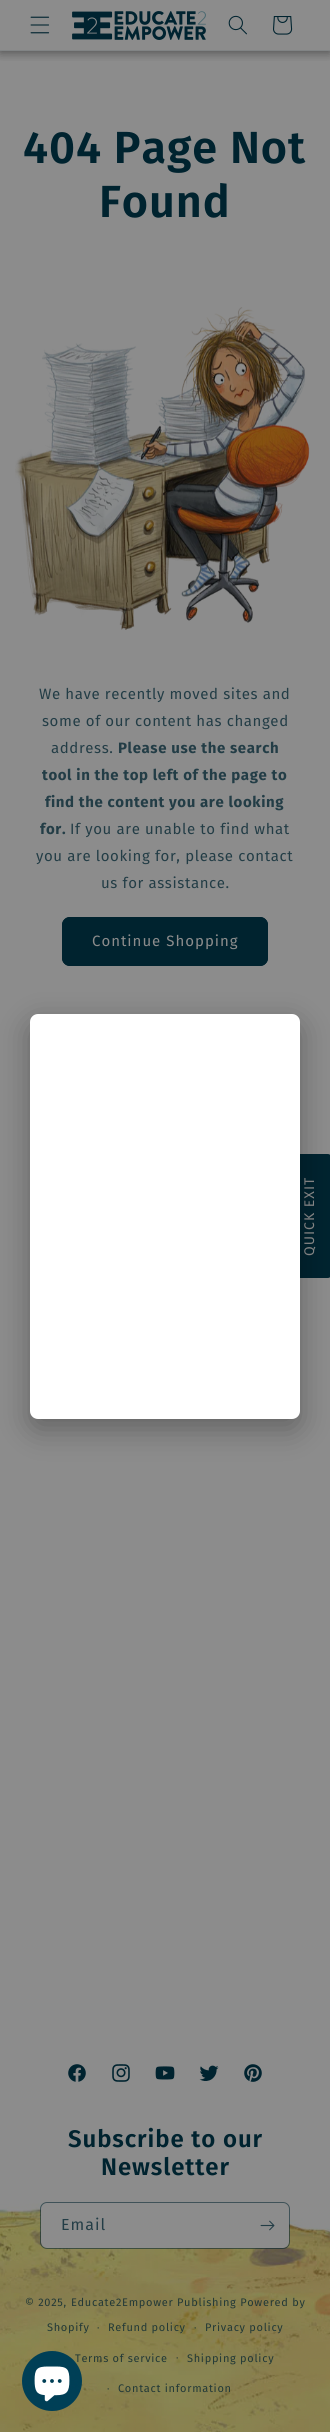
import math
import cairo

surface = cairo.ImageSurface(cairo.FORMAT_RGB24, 330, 2432)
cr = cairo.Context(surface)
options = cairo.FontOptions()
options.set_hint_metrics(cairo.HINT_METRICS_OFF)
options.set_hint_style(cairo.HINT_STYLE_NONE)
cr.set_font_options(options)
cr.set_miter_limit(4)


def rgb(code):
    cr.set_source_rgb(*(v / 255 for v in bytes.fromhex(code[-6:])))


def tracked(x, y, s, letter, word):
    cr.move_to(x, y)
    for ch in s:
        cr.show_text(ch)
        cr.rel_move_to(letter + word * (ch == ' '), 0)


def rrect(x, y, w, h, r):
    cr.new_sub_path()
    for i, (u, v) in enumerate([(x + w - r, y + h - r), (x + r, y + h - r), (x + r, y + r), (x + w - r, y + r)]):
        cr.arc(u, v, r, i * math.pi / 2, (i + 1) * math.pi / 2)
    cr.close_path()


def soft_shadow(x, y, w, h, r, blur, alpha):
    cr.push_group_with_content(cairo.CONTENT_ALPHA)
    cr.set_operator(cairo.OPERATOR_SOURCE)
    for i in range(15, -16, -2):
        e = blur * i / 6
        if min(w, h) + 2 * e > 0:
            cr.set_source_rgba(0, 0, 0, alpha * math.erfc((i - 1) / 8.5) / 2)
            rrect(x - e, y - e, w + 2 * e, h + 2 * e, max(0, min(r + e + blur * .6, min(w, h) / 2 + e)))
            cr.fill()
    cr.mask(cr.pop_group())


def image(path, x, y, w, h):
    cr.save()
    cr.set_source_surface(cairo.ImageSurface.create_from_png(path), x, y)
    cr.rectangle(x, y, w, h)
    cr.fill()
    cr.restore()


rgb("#8c8c8c")
cr.paint()
cr.save()
cr.rectangle(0, 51, 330, 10)
cr.clip()
rgb("#000000")
soft_shadow(0, 2, 330, 51, 0, 5, 0.4)
cr.restore()
rgb("#818485")
cr.rectangle(0, 50, 330, 1)
cr.fill()
image("img/1.png", 30, 16, 20, 18)
image("img/2.png", 72, 11, 134, 29)
image("img/3.png", 228, 15, 19, 20)
image("img/4.png", 273, 16, 20, 19)
image("img/5.png", 15, 307, 295, 323)
rgb("#00232f")
rrect(62, 917, 206, 49, 8)
cr.fill()
rrect(63, 918, 204, 47, 7)
cr.stroke()
cr.new_path()
cr.move_to(286, 1270)
cr.line_to(286, 1162)
cr.curve_to(286, 1158, 289, 1154, 294, 1154)
cr.line_to(326, 1154)
cr.curve_to(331, 1154, 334, 1158, 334, 1162)
cr.line_to(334, 1270)
cr.curve_to(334, 1274, 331, 1278, 326, 1278)
cr.line_to(294, 1278)
cr.curve_to(289, 1278, 286, 1274, 286, 1270)
cr.close_path()
cr.fill()
image("img/6.png", 0, 2203, 330, 229)
image("img/7.png", 68, 2064, 18, 18)
image("img/8.png", 112, 2064, 18, 18)
image("img/9.png", 155, 2066, 20, 14)
image("img/10.png", 199, 2065, 20, 16)
image("img/11.png", 244, 2064, 18, 18)
rgb("#8c8c8c")
rrect(41, 2203, 248, 45, 6)
cr.fill()
rrect(40.5, 2202.5, 249, 46, 6.5)
cr.set_source_rgba(0, 0.137, 0.184, 0.55)
cr.set_line_width(1)
cr.stroke()
image("img/12.png", 260, 2220, 15, 11)
cr.select_font_face("Fira Sans SemiBold")
cr.set_font_size(45)
rgb("#00232f")
tracked(23, 163, "404 Page Not", 0.9, 0)
tracked(99, 217, "Found", 0.9, 0)
cr.select_font_face("Fira Sans")
cr.set_font_size(15)
rgb("#233d46")
for x, y, s in [
    (39, 699, "We have recently moved sites and"),
    (42, 726, "some of our content has changed"),
    (51, 753, "address."),
]:
    tracked(x, y, s, 0.6, 0)
cr.select_font_face("Fira Sans", cairo.FONT_SLANT_NORMAL, cairo.FONT_WEIGHT_BOLD)
for x, y, s in [
    (118, 753, "Please use the search"),
    (42, 780, "tool in the top left of the page to"),
    (45, 807, "find the content you are looking"),
    (40, 834, "for."),
]:
    tracked(x, y, s, 0.6, 0)
cr.select_font_face("Fira Sans")
for x, y, s in [
    (70, 834, "If you are unable to find what"),
    (36, 861, "you are looking for, please contact"),
    (101, 888, "us for assistance."),
]:
    tracked(x, y, s, 0.6, 0)
rgb("#8c8c8c")
tracked(92, 946, "Continue Shopping", 1, 0)
cr.set_font_size(14)
cr.save()
cr.translate(314, 1256)
cr.rotate(-90 * math.pi / 180)
tracked(0, 0, "QUICK EXIT", 1, 0)
cr.restore()
cr.new_path()
cr.move_to(286.5, 1270)
cr.line_to(286.5, 1162)
cr.curve_to(286.5, 1158, 289.5, 1155, 293.5, 1155)
cr.line_to(326.5, 1155)
cr.curve_to(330.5, 1155, 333.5, 1158, 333.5, 1162)
cr.line_to(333.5, 1270)
cr.curve_to(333.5, 1274, 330.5, 1277, 326.5, 1277)
cr.line_to(293.5, 1277)
cr.curve_to(289.5, 1277, 286.5, 1274, 286.5, 1270)
cr.close_path()
rgb("#00232f")
cr.set_line_width(2)
cr.stroke()
rgb("#000000")
soft_shadow(30, 1024, 270, 405, 8, 15, 0.3)
rgb("#ffffff")
rrect(30, 1014, 270, 405, 8)
cr.fill()
cr.select_font_face("Fira Sans SemiBold")
cr.set_font_size(24)
rgb("#00232f")
tracked(68, 2147, "Subscribe to our", 0.9, 0)
tracked(101, 2175, "Newsletter", 0.9, 0)
cr.select_font_face("Fira Sans")
cr.set_font_size(16)
rgb("#233d46")
tracked(61, 2230, "Email", 1, 0)
cr.set_font_size(11)
rgb("#223937")
for x, y, s in [
    (25, 2306, "© 2025,"),
    (71, 2306, "Educate2Empower Publishing Powered by"),
    (47, 2331, "Shopify"),
]:
    tracked(x, y, s, 0.7, 0)
cr.set_font_size(10)
tracked(97, 2331, "·", 0.7, 0)
cr.set_font_size(11)
tracked(108, 2331, "Refund policy", 0.7, 0)
cr.set_font_size(10)
tracked(194, 2331, "·", 0.7, 0)
cr.set_font_size(11)
tracked(205, 2331, "Privacy policy", 0.7, 0)
tracked(75, 2362, "Terms of service", 0.7, 0)
cr.set_font_size(10)
tracked(176, 2361, "·", 0.7, 0)
cr.set_font_size(11)
tracked(187, 2362, "Shipping policy", 0.7, 0)
cr.set_font_size(10)
tracked(107, 2392, "·", 0.7, 0)
cr.set_font_size(11)
tracked(118, 2392, "Contact information", 0.7, 0)
rgb("#003f56")
cr.new_path()
cr.arc(52, 2381, 30, 0, 2 * math.pi)
cr.fill()
image("img/13.png", 34, 2366, 36, 36)
surface.write_to_png("page.png")
